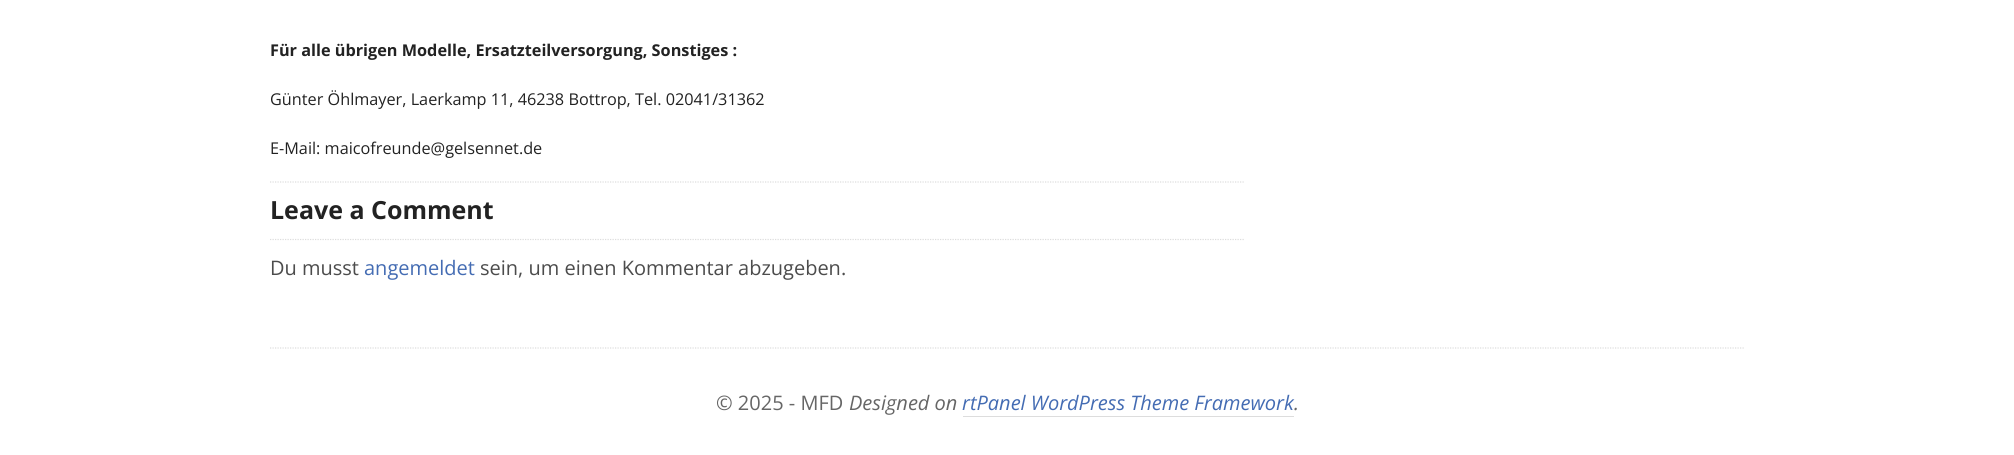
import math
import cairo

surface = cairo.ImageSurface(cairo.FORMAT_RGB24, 2014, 455)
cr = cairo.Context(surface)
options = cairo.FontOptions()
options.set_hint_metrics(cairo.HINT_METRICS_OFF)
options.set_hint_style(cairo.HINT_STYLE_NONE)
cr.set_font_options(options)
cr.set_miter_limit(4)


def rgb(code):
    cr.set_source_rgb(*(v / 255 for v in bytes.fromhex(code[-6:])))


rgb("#ffffff")
cr.paint()
cr.new_path()
cr.move_to(270, 182)
cr.line_to(1245, 182)
rgb("#dddddd")
cr.set_line_width(1.2)
cr.set_dash([1.25, 1.25])
cr.stroke()
cr.new_path()
cr.move_to(270, 239.5)
cr.line_to(1245, 239.5)
cr.stroke()
cr.new_path()
cr.move_to(270, 348)
cr.line_to(1745, 348)
cr.stroke()
cr.rectangle(963, 416, 331, 1)
cr.fill()
cr.select_font_face("Open Sans", cairo.FONT_SLANT_NORMAL, cairo.FONT_WEIGHT_BOLD)
cr.set_font_size(16.25)
rgb("#222222")
cr.move_to(270, 56)
cr.show_text("Für alle übrigen Modelle, Ersatzteilversorgung, Sonstiges :")
cr.select_font_face("Open Sans")
cr.move_to(270, 105)
cr.show_text("Günter Öhlmayer, Laerkamp 11, 46238 Bottrop, Tel. 02041/31362")
cr.move_to(270, 154)
cr.show_text("E-Mail: maicofreunde@gelsennet.de")
cr.select_font_face("Open Sans", cairo.FONT_SLANT_NORMAL, cairo.FONT_WEIGHT_BOLD)
cr.set_font_size(25)
cr.move_to(270, 219)
cr.show_text("Leave a Comment")
cr.select_font_face("Open Sans")
cr.set_font_size(20)
rgb("#4c4c4c")
cr.move_to(270, 275)
cr.show_text("Du musst")
rgb("#446cb3")
cr.move_to(364, 275)
cr.show_text("angemeldet")
rgb("#4c4c4c")
cr.move_to(480, 275)
cr.show_text("sein, um einen Kommentar abzugeben.")
rgb("#666666")
cr.move_to(716, 410)
cr.show_text("© 2025 - MFD")
cr.select_font_face("Open Sans", cairo.FONT_SLANT_ITALIC)
cr.move_to(849, 410)
cr.show_text("Designed on")
rgb("#446cb3")
cr.move_to(962, 410)
cr.show_text("rtPanel WordPress Theme Framework")
rgb("#666666")
cr.move_to(1294, 410)
cr.show_text(".")
surface.write_to_png("page.png")
